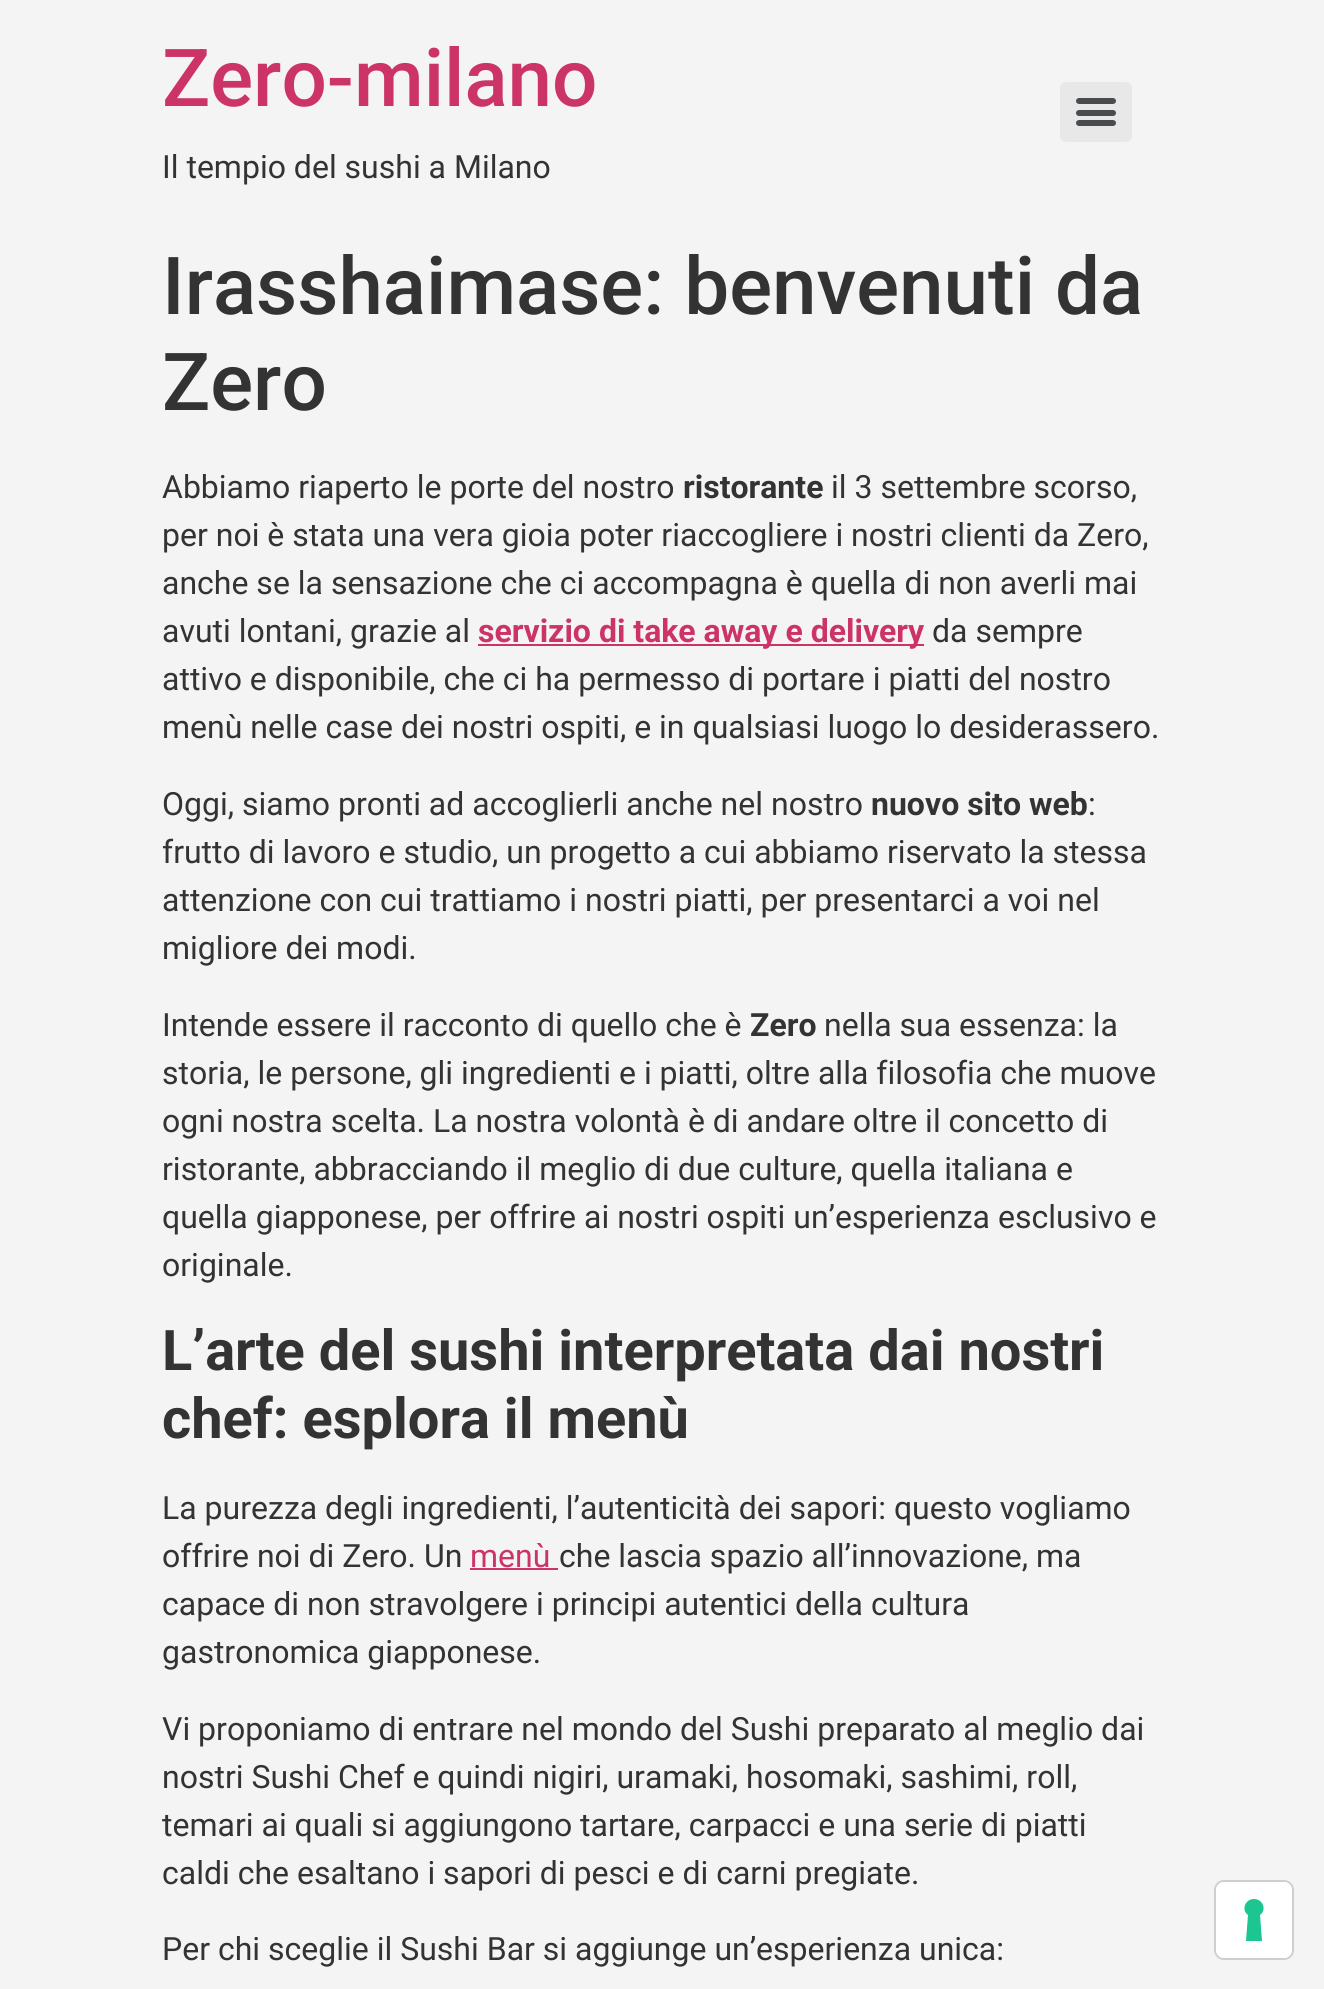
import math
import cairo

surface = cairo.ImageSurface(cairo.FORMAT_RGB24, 1324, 1989)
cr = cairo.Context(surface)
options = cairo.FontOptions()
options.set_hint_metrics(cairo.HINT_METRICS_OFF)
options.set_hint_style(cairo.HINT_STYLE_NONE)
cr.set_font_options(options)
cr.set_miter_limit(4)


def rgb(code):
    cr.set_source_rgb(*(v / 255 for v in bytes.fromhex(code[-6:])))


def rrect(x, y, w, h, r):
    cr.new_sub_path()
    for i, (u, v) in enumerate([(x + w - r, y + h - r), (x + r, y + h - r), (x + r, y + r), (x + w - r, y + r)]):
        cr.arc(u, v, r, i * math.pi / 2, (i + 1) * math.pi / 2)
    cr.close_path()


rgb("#f4f4f4")
cr.paint()
rgb("#e8e8e8")
rrect(1060, 82, 72, 60, 6)
cr.fill()
rgb("#494c4f")
rrect(1076, 110, 40, 6, 3)
cr.fill()
rrect(1076, 98, 40, 6, 3)
cr.fill()
rrect(1076, 120, 40, 6, 3)
cr.fill()
rgb("#cc3366")
cr.rectangle(478, 644, 446, 2)
cr.fill()
cr.rectangle(470, 1568, 88, 2)
cr.fill()
rrect(1215, 1881, 78, 78, 9)
rgb("#cfcfcf")
cr.stroke()
rgb("#ffffff")
rrect(1216, 1882, 76, 76, 8)
cr.fill()
rgb("#1cc691")
cr.set_fill_rule(cairo.FILL_RULE_EVEN_ODD)
cr.new_path()
cr.move_to(1254, 1899)
cr.curve_to(1263, 1899, 1267, 1910, 1260, 1915)
cr.line_to(1262, 1941)
cr.line_to(1246, 1941)
cr.line_to(1248, 1915)
cr.curve_to(1241, 1910, 1245, 1899, 1254, 1899)
cr.close_path()
cr.fill()
cr.select_font_face("Roboto Medium")
cr.set_font_size(80)
rgb("#cc3366")
cr.move_to(162, 106)
cr.show_text("Zero-milano")
cr.select_font_face("Roboto")
cr.set_font_size(32)
rgb("#333333")
cr.move_to(162, 178)
cr.show_text("Il tempio del sushi a Milano")
cr.select_font_face("Roboto Medium")
cr.set_font_size(80)
cr.move_to(162, 314)
cr.show_text("Irasshaimase: benvenuti da")
cr.move_to(162, 410)
cr.show_text("Zero")
cr.select_font_face("Roboto")
cr.set_font_size(32)
cr.move_to(162, 498)
cr.show_text("Abbiamo riaperto le porte del nostro")
cr.select_font_face("Roboto", cairo.FONT_SLANT_NORMAL, cairo.FONT_WEIGHT_BOLD)
cr.move_to(683, 498)
cr.show_text("ristorante")
cr.select_font_face("Roboto")
for x, y, s in [
    (831, 498, "il 3 settembre scorso,"),
    (162, 546, "per noi è stata una vera gioia poter riaccogliere i nostri clienti da Zero,"),
    (162, 594, "anche se la sensazione che ci accompagna è quella di non averli mai"),
    (162, 642, "avuti lontani, grazie al"),
]:
    cr.move_to(x, y)
    cr.show_text(s)
cr.select_font_face("Roboto", cairo.FONT_SLANT_NORMAL, cairo.FONT_WEIGHT_BOLD)
rgb("#cc3366")
cr.move_to(478, 642)
cr.show_text("servizio di take away e delivery")
cr.select_font_face("Roboto")
rgb("#333333")
for x, y, s in [
    (932, 642, "da sempre"),
    (162, 690, "attivo e disponibile, che ci ha permesso di portare i piatti del nostro"),
    (162, 738, "menù nelle case dei nostri ospiti, e in qualsiasi luogo lo desiderassero."),
    (162, 815, "Oggi, siamo pronti ad accoglierli anche nel nostro"),
]:
    cr.move_to(x, y)
    cr.show_text(s)
cr.select_font_face("Roboto", cairo.FONT_SLANT_NORMAL, cairo.FONT_WEIGHT_BOLD)
cr.move_to(871, 815)
cr.show_text("nuovo sito web")
cr.select_font_face("Roboto")
for x, y, s in [
    (1088, 815, ":"),
    (162, 863, "frutto di lavoro e studio, un progetto a cui abbiamo riservato la stessa"),
    (162, 911, "attenzione con cui trattiamo i nostri piatti, per presentarci a voi nel"),
    (162, 959, "migliore dei modi."),
    (162, 1036, "Intende essere il racconto di quello che è"),
]:
    cr.move_to(x, y)
    cr.show_text(s)
cr.select_font_face("Roboto", cairo.FONT_SLANT_NORMAL, cairo.FONT_WEIGHT_BOLD)
cr.move_to(750, 1036)
cr.show_text("Zero")
cr.select_font_face("Roboto")
for x, y, s in [
    (824, 1036, "nella sua essenza: la"),
    (162, 1084, "storia, le persone, gli ingredienti e i piatti, oltre alla filosofia che muove"),
    (162, 1132, "ogni nostra scelta. La nostra volontà è di andare oltre il concetto di"),
    (162, 1180, "ristorante, abbracciando il meglio di due culture, quella italiana e"),
    (162, 1228, "quella giapponese, per offrire ai nostri ospiti un’esperienza esclusivo e"),
    (162, 1276, "originale."),
]:
    cr.move_to(x, y)
    cr.show_text(s)
cr.select_font_face("Roboto", cairo.FONT_SLANT_NORMAL, cairo.FONT_WEIGHT_BOLD)
cr.set_font_size(56)
cr.move_to(162, 1370)
cr.show_text("L’arte del sushi interpretata dai nostri")
cr.move_to(162, 1438)
cr.show_text("chef: esplora il menù")
cr.select_font_face("Roboto")
cr.set_font_size(32)
cr.move_to(162, 1519)
cr.show_text("La purezza degli ingredienti, l’autenticità dei sapori: questo vogliamo")
cr.move_to(162, 1567)
cr.show_text("offrire noi di Zero. Un")
rgb("#cc3366")
cr.move_to(470, 1567)
cr.show_text("menù")
rgb("#333333")
for x, y, s in [
    (559, 1567, "che lascia spazio all’innovazione, ma"),
    (162, 1615, "capace di non stravolgere i principi autentici della cultura"),
    (162, 1663, "gastronomica giapponese."),
    (162, 1740, "Vi proponiamo di entrare nel mondo del Sushi preparato al meglio dai"),
    (162, 1788, "nostri Sushi Chef e quindi nigiri, uramaki, hosomaki, sashimi, roll,"),
    (162, 1836, "temari ai quali si aggiungono tartare, carpacci e una serie di piatti"),
    (162, 1884, "caldi che esaltano i sapori di pesci e di carni pregiate."),
    (162, 1960, "Per chi sceglie il Sushi Bar si aggiunge un’esperienza unica:"),
]:
    cr.move_to(x, y)
    cr.show_text(s)
surface.write_to_png("page.png")
